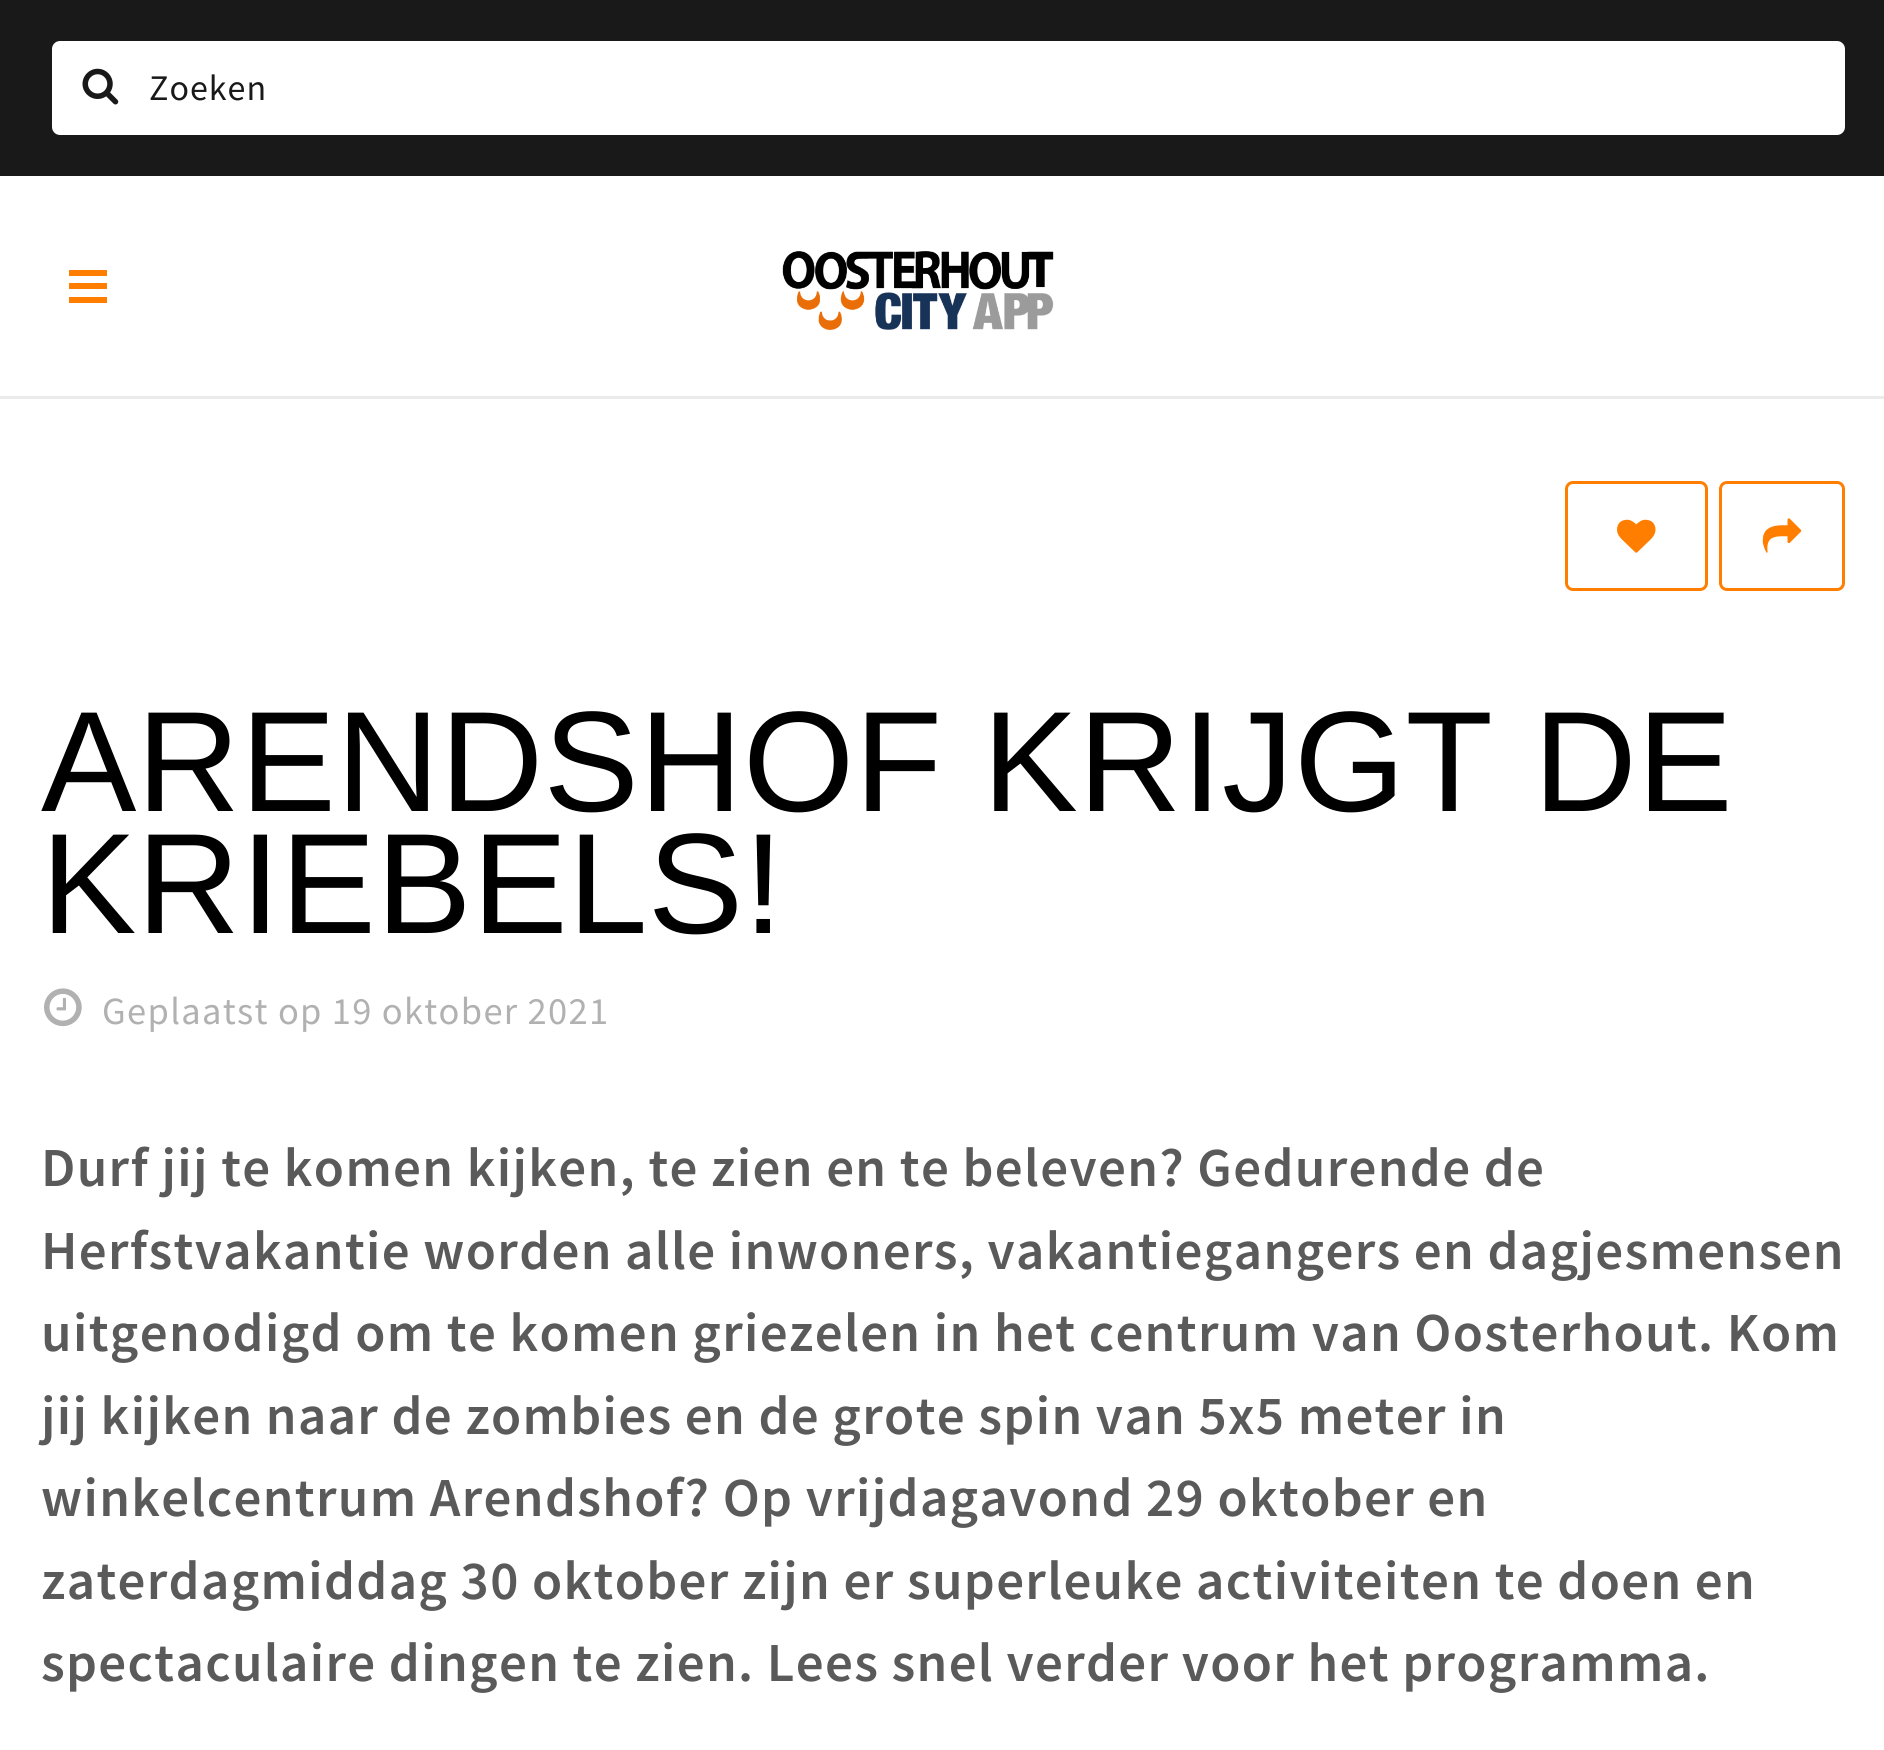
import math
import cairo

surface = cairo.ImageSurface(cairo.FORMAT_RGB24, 1884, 1750)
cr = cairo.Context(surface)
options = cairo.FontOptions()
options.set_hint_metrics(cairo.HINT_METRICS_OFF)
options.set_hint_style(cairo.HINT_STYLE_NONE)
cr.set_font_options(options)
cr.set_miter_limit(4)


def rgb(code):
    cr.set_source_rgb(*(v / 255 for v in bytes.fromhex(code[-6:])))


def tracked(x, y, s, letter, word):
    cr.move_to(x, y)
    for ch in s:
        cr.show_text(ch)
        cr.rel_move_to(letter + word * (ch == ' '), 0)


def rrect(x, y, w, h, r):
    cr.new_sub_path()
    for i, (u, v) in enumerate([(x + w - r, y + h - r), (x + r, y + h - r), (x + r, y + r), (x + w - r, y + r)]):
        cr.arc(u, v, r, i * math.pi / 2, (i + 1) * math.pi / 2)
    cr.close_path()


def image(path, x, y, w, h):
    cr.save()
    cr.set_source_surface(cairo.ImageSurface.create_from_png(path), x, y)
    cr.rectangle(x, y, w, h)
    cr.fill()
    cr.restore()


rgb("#191919")
cr.paint()
rgb("#ffffff")
rrect(52, 41, 1793, 94, 8)
cr.fill()
image("img/1.png", 82, 68, 37, 37)
for x, y, w, h, color in [
    (0, 399, 1884, 1351, "#ffffff"),
    (0, 176, 1884, 220, "#ffffff"),
    (69, 270, 38, 6, "#ff7e00"),
    (69, 283, 38, 6, "#ff7e00"),
    (69, 297, 38, 6, "#ff7e00"),
]:
    rgb(color)
    cr.rectangle(x, y, w, h)
    cr.fill()
image("img/2.png", 782, 250, 272, 80)
rgb("#ebebeb")
cr.rectangle(0, 396, 1884, 3)
cr.fill()
rrect(1566.5, 482.5, 140, 107, 6.5)
rgb("#ff7e00")
cr.set_line_width(3)
cr.stroke()
image("img/3.png", 1617, 519, 39, 34)
rrect(1720.5, 482.5, 123, 107, 6.5)
cr.stroke()
image("img/4.png", 1762, 518, 40, 35)
image("img/5.png", 44, 988, 38, 39)
cr.select_font_face("Source Sans Pro")
cr.set_font_size(36)
rgb("#191919")
tracked(149, 100, "Zoeken", 1, 0)
cr.select_font_face("Liberation Sans")
cr.set_font_size(143)
rgb("#000000")
tracked(41, 811, "ARENDSHOF KRIJGT DE", 0.4, 0)
tracked(41, 933, "KRIEBELS!", 0.4, 0)
cr.select_font_face("Source Sans Pro")
cr.set_font_size(38.5)
rgb("#b1b1b1")
tracked(102, 1024, "Geplaatst op 19 oktober 2021", 1.32, 0)
cr.select_font_face("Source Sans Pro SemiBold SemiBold")
cr.set_font_size(55)
rgb("#5a5a5a")
for x, y, s in [
    (41, 1186, "Durf jij te komen kijken, te zien en te beleven? Gedurende de"),
    (41, 1269, "Herfstvakantie worden alle inwoners, vakantiegangers en dagjesmensen"),
    (41, 1351, "uitgenodigd om te komen griezelen in het centrum van Oosterhout. Kom"),
    (41, 1434, "jij kijken naar de zombies en de grote spin van 5x5 meter in"),
    (41, 1516, "winkelcentrum Arendshof? Op vrijdagavond 29 oktober en"),
    (41, 1599, "zaterdagmiddag 30 oktober zijn er superleuke activiteiten te doen en"),
    (41, 1681, "spectaculaire dingen te zien. Lees snel verder voor het programma."),
]:
    tracked(x, y, s, 1.32, 0)
surface.write_to_png("page.png")
